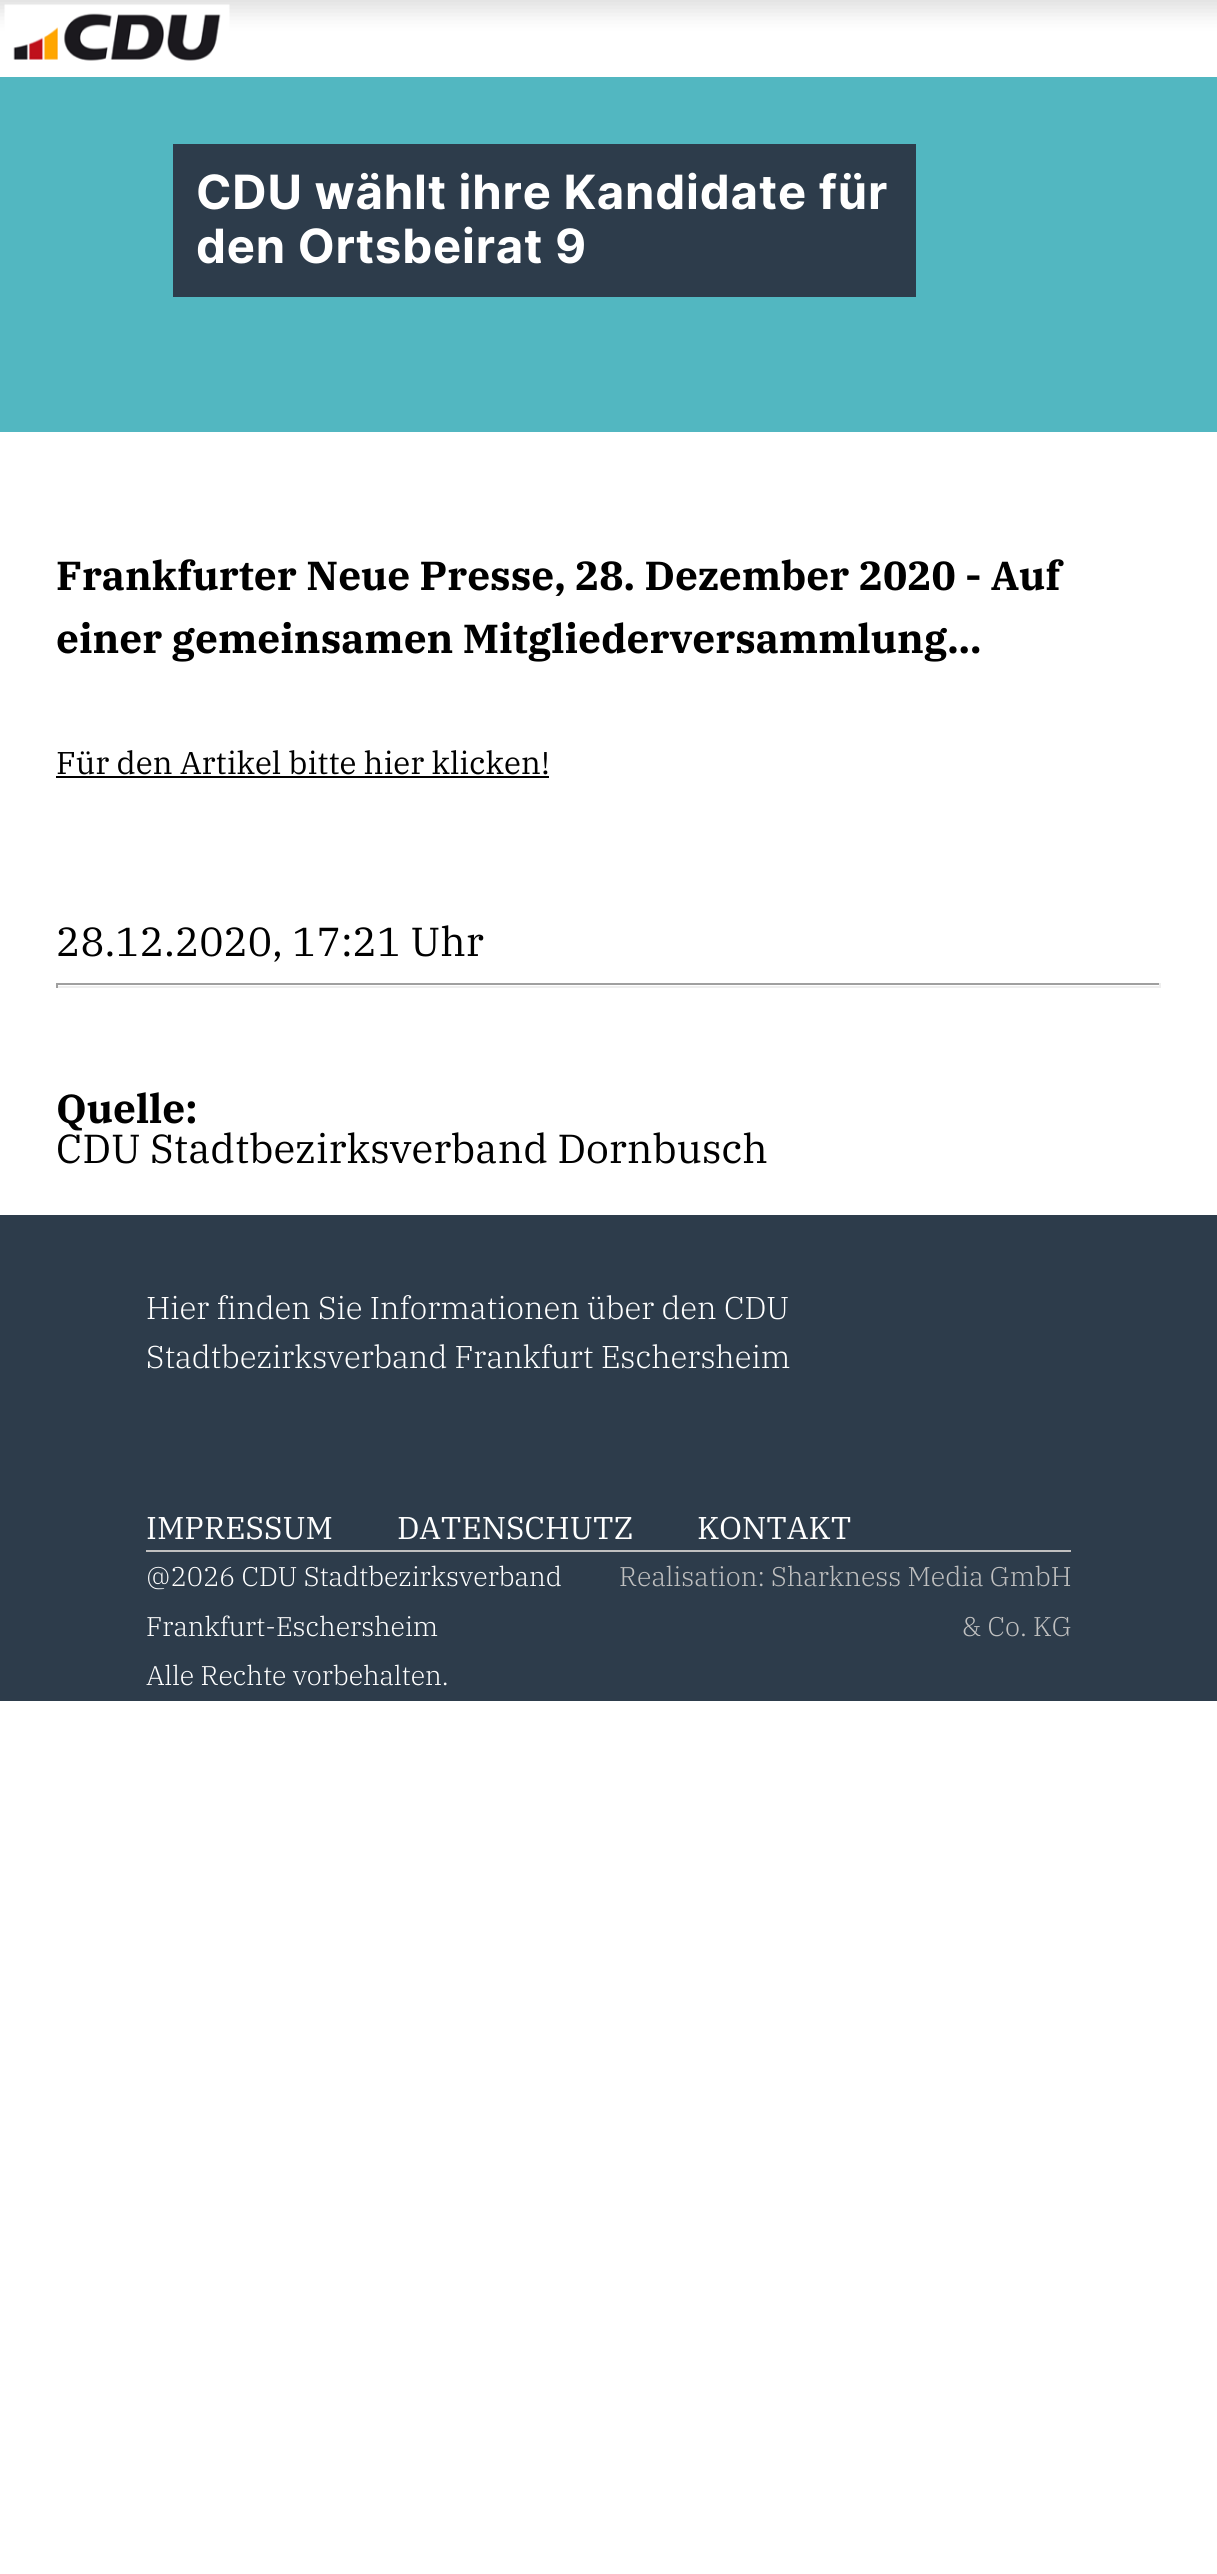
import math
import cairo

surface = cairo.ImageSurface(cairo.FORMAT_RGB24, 1217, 2574)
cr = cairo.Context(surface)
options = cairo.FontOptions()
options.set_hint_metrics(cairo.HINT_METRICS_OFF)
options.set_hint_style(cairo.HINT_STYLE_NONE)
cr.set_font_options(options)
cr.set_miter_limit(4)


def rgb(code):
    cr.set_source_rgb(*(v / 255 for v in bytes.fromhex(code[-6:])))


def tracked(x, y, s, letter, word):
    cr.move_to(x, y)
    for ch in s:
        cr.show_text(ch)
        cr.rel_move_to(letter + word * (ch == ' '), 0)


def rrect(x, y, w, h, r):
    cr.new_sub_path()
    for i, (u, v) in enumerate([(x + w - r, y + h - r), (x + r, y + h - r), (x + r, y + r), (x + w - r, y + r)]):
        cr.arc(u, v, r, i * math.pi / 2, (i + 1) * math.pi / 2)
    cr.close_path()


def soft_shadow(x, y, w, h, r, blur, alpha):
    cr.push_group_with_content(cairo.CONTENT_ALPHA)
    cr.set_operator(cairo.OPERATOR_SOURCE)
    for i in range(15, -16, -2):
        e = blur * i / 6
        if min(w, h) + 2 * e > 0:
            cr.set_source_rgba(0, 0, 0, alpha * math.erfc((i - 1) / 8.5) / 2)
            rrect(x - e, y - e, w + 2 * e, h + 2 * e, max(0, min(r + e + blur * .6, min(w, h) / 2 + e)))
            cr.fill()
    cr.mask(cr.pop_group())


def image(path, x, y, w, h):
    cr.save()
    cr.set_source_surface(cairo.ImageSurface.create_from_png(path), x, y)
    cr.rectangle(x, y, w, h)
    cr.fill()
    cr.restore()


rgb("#ffffff")
cr.paint()
rgb("#000000")
soft_shadow(-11, -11, 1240, 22, 0, 11, 0.13)
image("img/1.png", 4, 4, 226, 57)
for x, y, w, h, color in [
    (0, 77, 1217, 355, "#52b7c1"),
    (173, 144, 743, 153, "#2d3c4b"),
    (56, 776, 493, 2, "#000000"),
    (56, 983, 1105, 2, "#9f9f9f"),
    (1159, 983, 2, 5, "#eeeeee"),
    (56, 986, 1105, 2, "#eeeeee"),
    (56, 983, 2, 5, "#9f9f9f"),
    (0, 1215, 1217, 486, "#2d3c4b"),
    (146, 1550, 925, 2, "#c0c0c0"),
]:
    rgb(color)
    cr.rectangle(x, y, w, h)
    cr.fill()
cr.select_font_face("Inter", cairo.FONT_SLANT_NORMAL, cairo.FONT_WEIGHT_BOLD)
cr.set_font_size(47.25)
rgb("#ffffff")
tracked(196, 209, "CDU wählt ihre Kandidate für", 0.8, 0)
tracked(196, 263, "den Ortsbeirat 9", 0.8, 0)
cr.select_font_face("IBM Plex Serif", cairo.FONT_SLANT_NORMAL, cairo.FONT_WEIGHT_BOLD)
cr.set_font_size(40.5)
rgb("#000000")
cr.move_to(56, 590)
cr.show_text("Frankfurter Neue Presse, 28. Dezember 2020 - Auf")
cr.move_to(56, 653)
cr.show_text("einer gemeinsamen Mitgliederversammlung...")
cr.select_font_face("IBM Plex Serif")
cr.set_font_size(31.5)
cr.move_to(56, 774)
cr.show_text("Für den Artikel bitte hier klicken!")
cr.set_font_size(40.5)
cr.move_to(56, 956)
cr.show_text("28.12.2020, 17:21 Uhr")
cr.select_font_face("IBM Plex Serif", cairo.FONT_SLANT_NORMAL, cairo.FONT_WEIGHT_BOLD)
cr.move_to(56, 1123)
cr.show_text("Quelle:")
cr.select_font_face("IBM Plex Serif")
cr.move_to(56, 1163)
cr.show_text("CDU Stadtbezirksverband Dornbusch")
cr.select_font_face("IBM Plex Serif Light")
cr.set_font_size(31.5)
rgb("#ffffff")
cr.move_to(146, 1319)
cr.show_text("Hier finden Sie Informationen über den CDU")
cr.move_to(146, 1368)
cr.show_text("Stadtbezirksverband Frankfurt Eschersheim")
cr.select_font_face("IBM Plex Serif")
for x, y, s in [
    (146, 1539, "IMPRESSUM"),
    (397, 1539, "DATENSCHUTZ"),
    (697, 1539, "KONTAKT"),
]:
    cr.move_to(x, y)
    cr.show_text(s)
cr.select_font_face("IBM Plex Serif Light")
cr.set_font_size(27)
for x, y, s in [
    (146, 1586, "@2026 CDU Stadtbezirksverband"),
    (146, 1636, "Frankfurt-Eschersheim"),
    (146, 1685, "Alle Rechte vorbehalten."),
]:
    cr.move_to(x, y)
    cr.show_text(s)
rgb("#c0c0c0")
cr.move_to(619, 1586)
cr.show_text("Realisation: Sharkness Media GmbH")
cr.move_to(962, 1636)
cr.show_text("& Co. KG")
surface.write_to_png("page.png")
